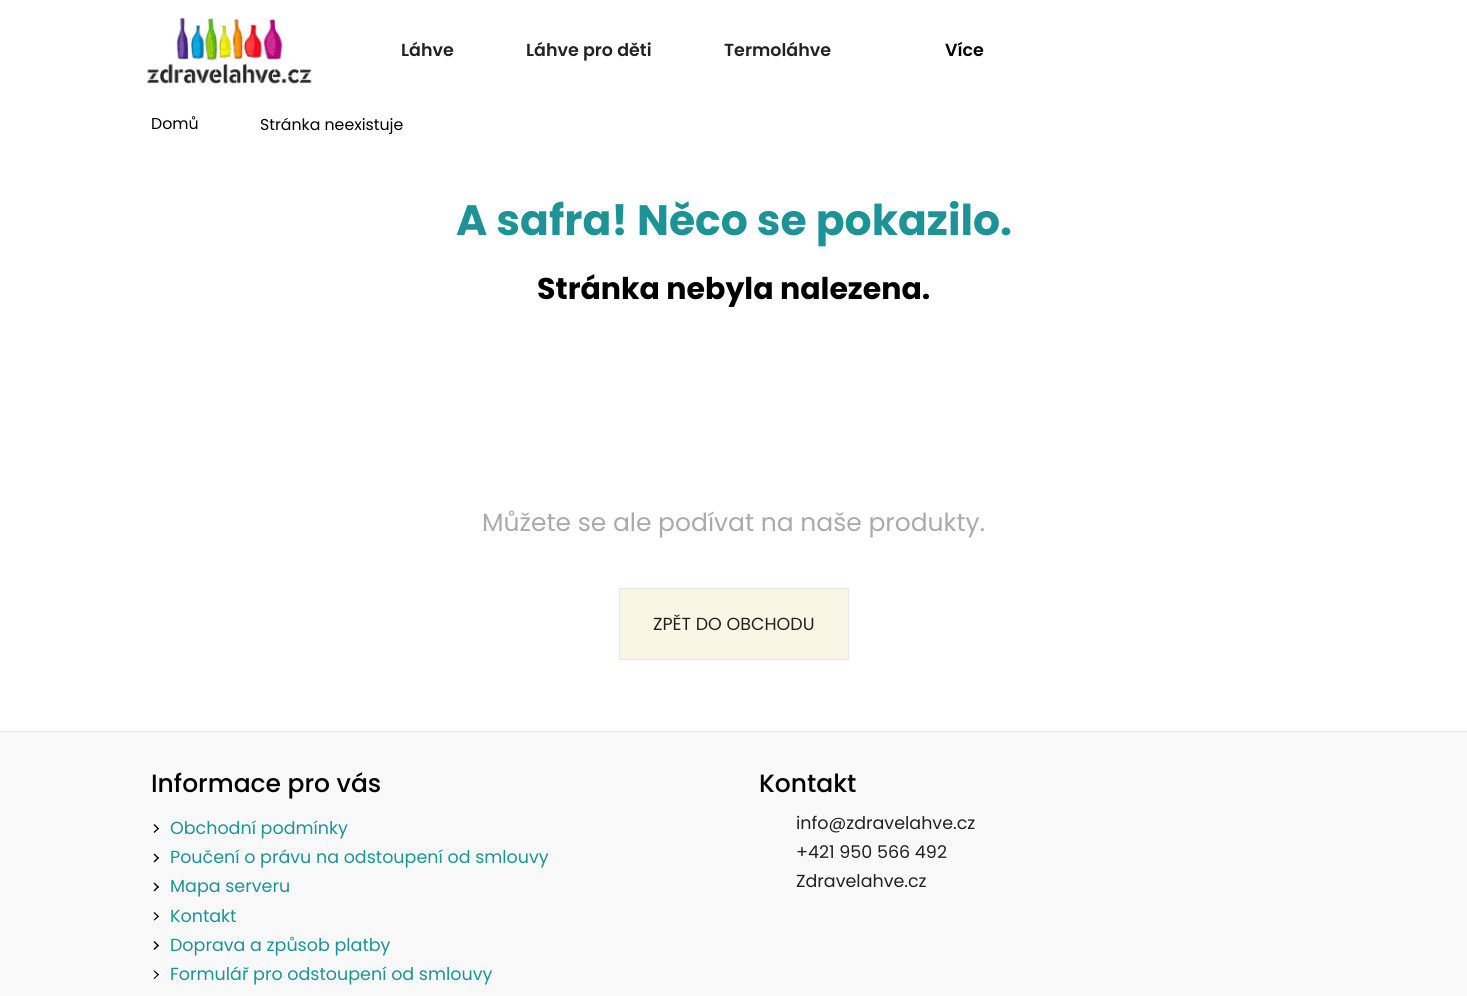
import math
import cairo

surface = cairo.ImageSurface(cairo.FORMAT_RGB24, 1467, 996)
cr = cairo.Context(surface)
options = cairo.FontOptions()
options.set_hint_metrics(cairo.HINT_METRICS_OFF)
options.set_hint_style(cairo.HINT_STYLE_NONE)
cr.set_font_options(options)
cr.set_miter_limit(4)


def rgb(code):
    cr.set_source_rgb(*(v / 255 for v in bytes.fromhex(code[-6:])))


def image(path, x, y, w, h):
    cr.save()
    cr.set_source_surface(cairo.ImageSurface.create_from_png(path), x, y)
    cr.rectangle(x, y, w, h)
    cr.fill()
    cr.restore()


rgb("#ffffff")
cr.paint()
image("img/1.png", 146, 17, 166, 67)
rgb("#faf6e5")
cr.rectangle(619.5, 588.5, 229, 71)
cr.fill_preserve()
rgb("#e6e6e6")
cr.set_line_width(1)
cr.stroke()
rgb("#f9f9f9")
cr.rectangle(0, 732, 1467, 264)
cr.fill()
rgb("#e6e6e6")
cr.rectangle(0, 731, 1467, 1)
cr.fill()
rgb("#000000")
cr.new_path()
cr.move_to(153.5, 825)
cr.line_to(154.5, 824)
cr.line_to(159, 828.5)
cr.line_to(158, 829.5)
cr.close_path()
cr.fill()
cr.new_path()
cr.move_to(153.5, 832)
cr.line_to(158, 828)
cr.line_to(159, 828.5)
cr.line_to(154.5, 833)
cr.close_path()
cr.fill()
cr.new_path()
cr.move_to(153.5, 854.5)
cr.line_to(154.5, 853.5)
cr.line_to(159, 858)
cr.line_to(158, 859)
cr.close_path()
cr.fill()
cr.new_path()
cr.move_to(153.5, 861.5)
cr.line_to(158, 857)
cr.line_to(159, 858)
cr.line_to(154.5, 862.5)
cr.close_path()
cr.fill()
cr.new_path()
cr.move_to(153.5, 883.5)
cr.line_to(154.5, 882.5)
cr.line_to(159, 887)
cr.line_to(158, 888)
cr.close_path()
cr.fill()
cr.new_path()
cr.move_to(153.5, 890.5)
cr.line_to(158, 886)
cr.line_to(159, 887)
cr.line_to(154.5, 891.5)
cr.close_path()
cr.fill()
cr.new_path()
cr.move_to(153.5, 913)
cr.line_to(154.5, 912)
cr.line_to(159, 916.5)
cr.line_to(158, 917)
cr.close_path()
cr.fill()
cr.new_path()
cr.move_to(153.5, 920)
cr.line_to(158, 915.5)
cr.line_to(159, 916.5)
cr.line_to(154.5, 920.5)
cr.close_path()
cr.fill()
cr.new_path()
cr.move_to(153.5, 942)
cr.line_to(154.5, 941)
cr.line_to(159, 945.5)
cr.line_to(158, 946.5)
cr.close_path()
cr.fill()
cr.new_path()
cr.move_to(153.5, 949)
cr.line_to(158, 944.5)
cr.line_to(159, 945.5)
cr.line_to(154.5, 950)
cr.close_path()
cr.fill()
cr.new_path()
cr.move_to(153.5, 971)
cr.line_to(154.5, 970.5)
cr.line_to(159, 974.5)
cr.line_to(158, 975.5)
cr.close_path()
cr.fill()
cr.new_path()
cr.move_to(153.5, 978.5)
cr.line_to(158, 974)
cr.line_to(159, 974.5)
cr.line_to(154.5, 979)
cr.close_path()
cr.fill()
cr.select_font_face("Poppins SemiBold")
cr.set_font_size(17.5)
rgb("#222222")
for x, y, s in [
    (401, 56, "Láhve"),
    (526, 56, "Láhve pro děti"),
    (724, 56, "Termoláhve"),
]:
    cr.move_to(x, y)
    cr.show_text(s)
rgb("#000000")
cr.move_to(945, 56)
cr.show_text("Více")
cr.select_font_face("Poppins")
cr.set_font_size(15.75)
cr.move_to(151, 129)
cr.show_text("Domů")
cr.move_to(260, 130)
cr.show_text("Stránka neexistuje")
cr.select_font_face("Poppins", cairo.FONT_SLANT_NORMAL, cairo.FONT_WEIGHT_BOLD)
cr.set_font_size(42.5)
rgb("#1d9395")
cr.move_to(456, 235)
cr.show_text("A safra! Něco se pokazilo.")
cr.set_font_size(30)
rgb("#000000")
cr.move_to(537, 299)
cr.show_text("Stránka nebyla nalezena.")
cr.select_font_face("Poppins")
cr.set_font_size(25)
rgb("#aaaaaa")
cr.move_to(482, 531)
cr.show_text("Můžete se ale podívat na naše produkty.")
cr.set_font_size(17.5)
rgb("#222222")
cr.move_to(653, 630)
cr.show_text("ZPĚT DO OBCHODU")
cr.select_font_face("Poppins Medium")
cr.set_font_size(25)
rgb("#000000")
cr.move_to(151, 792)
cr.show_text("Informace pro vás")
cr.select_font_face("Poppins")
cr.set_font_size(17.5)
rgb("#1d9395")
for x, y, s in [
    (170, 834, "Obchodní podmínky"),
    (170, 863, "Poučení o právu na odstoupení od smlouvy"),
    (170, 892, "Mapa serveru"),
    (170, 922, "Kontakt"),
    (170, 951, "Doprava a způsob platby"),
    (170, 980, "Formulář pro odstoupení od smlouvy"),
]:
    cr.move_to(x, y)
    cr.show_text(s)
cr.select_font_face("Poppins Medium")
cr.set_font_size(25)
rgb("#000000")
cr.move_to(759, 792)
cr.show_text("Kontakt")
cr.select_font_face("Poppins")
cr.set_font_size(17.5)
rgb("#222222")
for x, y, s in [
    (796, 829, "info@zdravelahve.cz"),
    (796, 858, "+421 950 566 492"),
    (796, 887, "Zdravelahve.cz"),
]:
    cr.move_to(x, y)
    cr.show_text(s)
surface.write_to_png("page.png")
